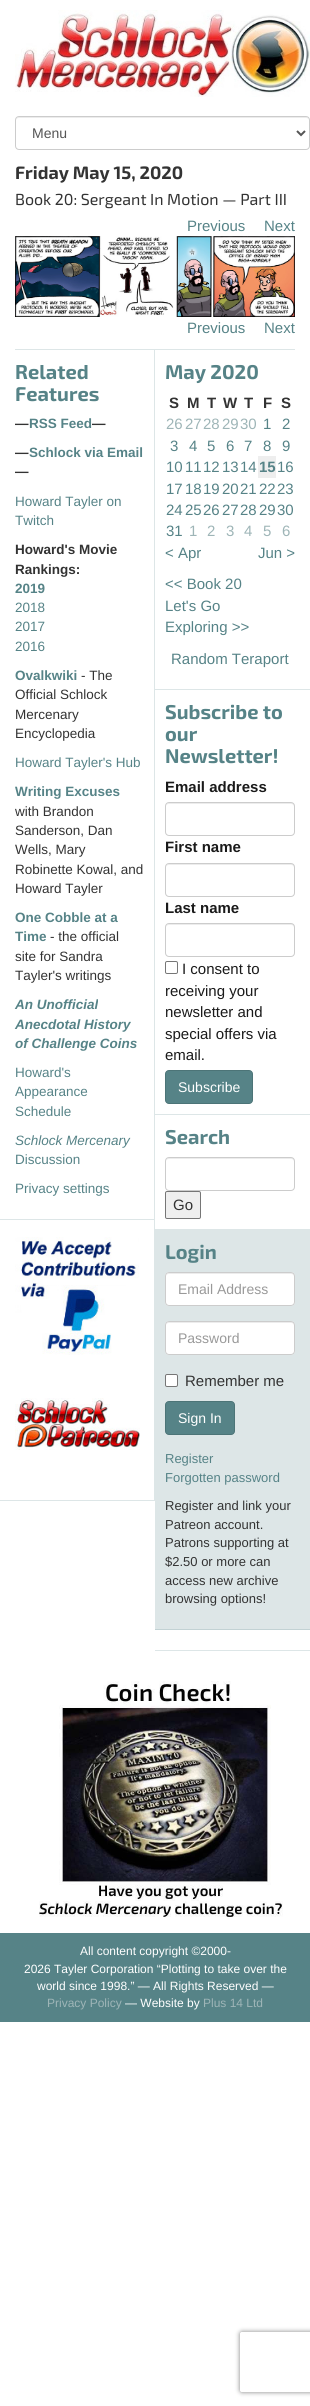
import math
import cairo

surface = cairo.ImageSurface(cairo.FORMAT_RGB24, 310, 2406)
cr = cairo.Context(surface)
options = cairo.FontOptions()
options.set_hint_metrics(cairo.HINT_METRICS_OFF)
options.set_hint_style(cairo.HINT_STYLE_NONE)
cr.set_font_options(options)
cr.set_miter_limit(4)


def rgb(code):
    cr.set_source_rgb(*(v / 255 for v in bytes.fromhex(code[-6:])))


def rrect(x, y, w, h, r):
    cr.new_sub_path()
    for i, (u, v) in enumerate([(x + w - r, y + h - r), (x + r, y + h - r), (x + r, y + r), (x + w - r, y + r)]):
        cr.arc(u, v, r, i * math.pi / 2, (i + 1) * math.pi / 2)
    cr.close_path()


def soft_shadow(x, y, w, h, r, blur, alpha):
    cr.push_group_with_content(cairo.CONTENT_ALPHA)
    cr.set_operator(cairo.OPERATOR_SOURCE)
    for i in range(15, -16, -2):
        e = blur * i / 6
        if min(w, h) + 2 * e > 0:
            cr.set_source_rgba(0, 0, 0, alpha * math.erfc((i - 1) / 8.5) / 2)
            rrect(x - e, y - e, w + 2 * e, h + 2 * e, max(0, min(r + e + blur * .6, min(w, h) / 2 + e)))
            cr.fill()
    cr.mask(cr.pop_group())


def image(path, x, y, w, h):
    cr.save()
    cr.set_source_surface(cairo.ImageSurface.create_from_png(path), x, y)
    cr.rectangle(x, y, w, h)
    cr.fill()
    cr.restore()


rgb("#ffffff")
cr.paint()
image("img/1.png", 15, 10, 295, 87)
rgb("#ececec")
cr.new_path()
cr.move_to(19, 118)
cr.line_to(306, 118)
cr.curve_to(308, 118, 309, 119, 309, 121)
cr.curve_to(309, 119, 308, 117, 306, 117)
cr.line_to(19, 117)
cr.curve_to(17, 117, 16, 119, 16, 121)
cr.curve_to(16, 119, 17, 118, 19, 118)
cr.close_path()
cr.fill()
rrect(15.5, 116.5, 294, 33, 3.5)
rgb("#cccccc")
cr.set_line_width(1)
cr.stroke()
cr.new_path()
cr.move_to(297, 131)
cr.line_to(301, 135)
cr.line_to(305, 131)
rgb("#555555")
cr.set_line_width(2)
cr.stroke()
image("img/2.png", 15, 236, 280, 81)
for x, y, w, h, color in [
    (15, 349, 280, 1, "#dde6e7"),
    (154, 350, 1, 1151, "#dde6e7"),
    (0, 1219, 154, 1, "#dde6e7"),
    (0, 1500, 154, 1, "#dde6e7"),
]:
    rgb(color)
    cr.rectangle(x, y, w, h)
    cr.fill()
image("img/3.png", 15, 1237, 124, 118)
image("img/4.png", 15, 1398, 125, 52)
for x, y, w, h, color in [
    (155, 689, 155, 1, "#dde6e7"),
    (258, 456, 18, 22, "#eeeeee"),
    (155, 1114, 155, 1, "#dde6e7"),
]:
    rgb(color)
    cr.rectangle(x, y, w, h)
    cr.fill()
rgb("#ececec")
cr.new_path()
cr.move_to(169, 804)
cr.line_to(291, 804)
cr.curve_to(293, 804, 294, 805, 294, 807)
cr.curve_to(294, 805, 294, 803, 292, 803)
cr.line_to(169, 803)
cr.curve_to(167, 803, 166, 805, 166, 807)
cr.curve_to(166, 805, 167, 804, 169, 804)
cr.close_path()
cr.fill()
rrect(165.5, 802.5, 129, 33, 3.5)
rgb("#cccccc")
cr.set_line_width(1)
cr.stroke()
rgb("#ececec")
cr.new_path()
cr.move_to(169, 865)
cr.line_to(291, 865)
cr.curve_to(293, 865, 294, 866, 294, 868)
cr.curve_to(294, 866, 294, 864, 292, 864)
cr.line_to(169, 864)
cr.curve_to(167, 864, 166, 866, 166, 868)
cr.curve_to(166, 866, 167, 865, 169, 865)
cr.close_path()
cr.fill()
rrect(165.5, 863.5, 129, 33, 3.5)
rgb("#cccccc")
cr.stroke()
rgb("#ececec")
cr.new_path()
cr.move_to(169, 925)
cr.line_to(291, 925)
cr.curve_to(293, 925, 294, 926, 294, 928)
cr.curve_to(294, 926, 294, 924, 292, 924)
cr.line_to(169, 924)
cr.curve_to(167, 924, 166, 926, 166, 928)
cr.curve_to(166, 926, 167, 925, 169, 925)
cr.close_path()
cr.fill()
rrect(165.5, 923.5, 129, 33, 3.5)
rgb("#cccccc")
cr.stroke()
rrect(165.5, 961.5, 12, 12, 1.5)
rgb("#767676")
cr.stroke()
rgb("#568387")
rrect(165.5, 1070.5, 87, 33, 3.5)
cr.fill_preserve()
rgb("#4c7477")
cr.stroke()
cr.save()
cr.set_fill_rule(cairo.FILL_RULE_EVEN_ODD)
cr.new_path()
cr.move_to(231, 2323)
cr.line_to(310, 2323)
cr.line_to(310, 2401)
cr.line_to(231, 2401)
cr.close_path()
cr.move_to(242, 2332)
cr.line_to(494, 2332)
cr.curve_to(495, 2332, 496, 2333, 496, 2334)
cr.line_to(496, 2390)
cr.curve_to(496, 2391, 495, 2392, 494, 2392)
cr.line_to(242, 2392)
cr.curve_to(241, 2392, 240, 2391, 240, 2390)
cr.line_to(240, 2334)
cr.curve_to(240, 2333, 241, 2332, 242, 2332)
cr.close_path()
cr.clip()
rgb("#808080")
soft_shadow(240, 2332, 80, 60, 2, 2.5, 1)
cr.restore()
rgb("#dde6e7")
cr.rectangle(155, 1229, 155, 400)
cr.fill()
rgb("#ececec")
cr.new_path()
cr.move_to(169, 1159)
cr.line_to(291, 1159)
cr.curve_to(293, 1159, 294, 1160, 294, 1162)
cr.curve_to(294, 1160, 294, 1158, 292, 1158)
cr.line_to(169, 1158)
cr.curve_to(167, 1158, 166, 1160, 166, 1162)
cr.curve_to(166, 1160, 167, 1159, 169, 1159)
cr.close_path()
cr.fill()
rrect(165.5, 1157.5, 129, 33, 3.5)
rgb("#cccccc")
cr.stroke()
rgb("#efefef")
rrect(165.5, 1191.5, 35, 27, 1.5)
cr.fill_preserve()
rgb("#767676")
cr.stroke()
rgb("#c2d2d4")
cr.rectangle(155, 1629, 155, 1)
cr.fill()
rgb("#ffffff")
rrect(165, 1272, 130, 34, 4)
cr.fill()
rgb("#ececec")
cr.new_path()
cr.move_to(169, 1274)
cr.line_to(291, 1274)
cr.curve_to(293, 1274, 294, 1275, 294, 1277)
cr.curve_to(294, 1275, 294, 1273, 292, 1273)
cr.line_to(169, 1273)
cr.curve_to(167, 1273, 166, 1275, 166, 1277)
cr.curve_to(166, 1275, 167, 1274, 169, 1274)
cr.close_path()
cr.fill()
rrect(165.5, 1272.5, 129, 33, 3.5)
rgb("#cccccc")
cr.stroke()
rgb("#ffffff")
rrect(165, 1321, 130, 34, 4)
cr.fill()
rgb("#ececec")
cr.new_path()
cr.move_to(169, 1323)
cr.line_to(291, 1323)
cr.curve_to(293, 1323, 294, 1324, 294, 1326)
cr.curve_to(294, 1324, 294, 1322, 292, 1322)
cr.line_to(169, 1322)
cr.curve_to(167, 1322, 166, 1324, 166, 1326)
cr.curve_to(166, 1324, 167, 1323, 169, 1323)
cr.close_path()
cr.fill()
rrect(165.5, 1321.5, 129, 33, 3.5)
rgb("#cccccc")
cr.stroke()
rgb("#ffffff")
rrect(165.5, 1374.5, 12, 12, 1.5)
cr.fill_preserve()
rgb("#767676")
cr.stroke()
rgb("#568387")
rrect(165.5, 1401.5, 69, 33, 3.5)
cr.fill_preserve()
rgb("#4c7477")
cr.stroke()
rgb("#dde6e7")
cr.rectangle(155, 1650, 155, 1)
cr.fill()
image("img/5.png", 39, 1681, 244, 236)
rgb("#568387")
cr.rectangle(0, 1933, 310, 89)
cr.fill()
cr.select_font_face("Liberation Sans")
cr.set_font_size(14)
rgb("#555555")
cr.move_to(32, 138)
cr.show_text("Menu")
cr.select_font_face("Exo 2", cairo.FONT_SLANT_NORMAL, cairo.FONT_WEIGHT_BOLD)
cr.set_font_size(18)
rgb("#333333")
cr.move_to(15, 179)
cr.show_text("Friday May 15, 2020")
cr.select_font_face("Exo 2")
cr.set_font_size(16)
cr.move_to(15, 205)
cr.show_text("Book 20: Sergeant In Motion — Part III")
cr.select_font_face("Liberation Sans")
cr.set_font_size(15)
rgb("#568387")
for x, y, s in [
    (187, 231, "Previous"),
    (264, 231, "Next"),
    (187, 333, "Previous"),
    (264, 333, "Next"),
]:
    cr.move_to(x, y)
    cr.show_text(s)
cr.select_font_face("Exo 2", cairo.FONT_SLANT_NORMAL, cairo.FONT_WEIGHT_BOLD)
cr.set_font_size(20)
cr.move_to(15, 379)
cr.show_text("Related")
cr.move_to(15, 401)
cr.show_text("Features")
cr.select_font_face("Liberation Sans", cairo.FONT_SLANT_NORMAL, cairo.FONT_WEIGHT_BOLD)
cr.set_font_size(13.5)
rgb("#333333")
cr.move_to(15, 428)
cr.show_text("—")
rgb("#568387")
cr.move_to(29, 428)
cr.show_text("RSS Feed")
rgb("#333333")
cr.move_to(92, 428)
cr.show_text("—")
cr.move_to(15, 457)
cr.show_text("—")
rgb("#568387")
cr.move_to(29, 457)
cr.show_text("Schlock via Email")
rgb("#333333")
cr.move_to(15, 476)
cr.show_text("—")
cr.select_font_face("Liberation Sans")
rgb("#568387")
cr.move_to(15, 506)
cr.show_text("Howard Tayler on")
cr.move_to(15, 525)
cr.show_text("Twitch")
cr.select_font_face("Liberation Sans", cairo.FONT_SLANT_NORMAL, cairo.FONT_WEIGHT_BOLD)
rgb("#333333")
cr.move_to(15, 554)
cr.show_text("Howard's Movie")
cr.move_to(15, 574)
cr.show_text("Rankings:")
rgb("#568387")
cr.move_to(15, 593)
cr.show_text("2019")
cr.select_font_face("Liberation Sans")
for x, y, s in [
    (15, 612, "2018"),
    (15, 631, "2017"),
    (15, 651, "2016"),
]:
    cr.move_to(x, y)
    cr.show_text(s)
cr.select_font_face("Liberation Sans", cairo.FONT_SLANT_NORMAL, cairo.FONT_WEIGHT_BOLD)
cr.move_to(15, 680)
cr.show_text("Ovalkwiki")
cr.select_font_face("Liberation Sans")
rgb("#333333")
for x, y, s in [
    (81, 680, "- The"),
    (15, 699, "Official Schlock"),
    (15, 719, "Mercenary"),
    (15, 738, "Encyclopedia"),
]:
    cr.move_to(x, y)
    cr.show_text(s)
rgb("#568387")
cr.move_to(15, 767)
cr.show_text("Howard Tayler's Hub")
cr.select_font_face("Liberation Sans", cairo.FONT_SLANT_NORMAL, cairo.FONT_WEIGHT_BOLD)
cr.move_to(15, 796)
cr.show_text("Writing Excuses")
cr.select_font_face("Liberation Sans")
rgb("#333333")
for x, y, s in [
    (15, 816, "with Brandon"),
    (15, 835, "Sanderson, Dan"),
    (15, 854, "Wells, Mary"),
    (15, 874, "Robinette Kowal, and"),
    (15, 893, "Howard Tayler"),
]:
    cr.move_to(x, y)
    cr.show_text(s)
cr.select_font_face("Liberation Sans", cairo.FONT_SLANT_NORMAL, cairo.FONT_WEIGHT_BOLD)
rgb("#568387")
cr.move_to(15, 922)
cr.show_text("One Cobble at a")
cr.move_to(15, 941)
cr.show_text("Time")
cr.select_font_face("Liberation Sans")
rgb("#333333")
for x, y, s in [
    (50, 941, "- the official"),
    (15, 961, "site for Sandra"),
    (15, 980, "Tayler's writings"),
]:
    cr.move_to(x, y)
    cr.show_text(s)
cr.select_font_face("Liberation Sans", cairo.FONT_SLANT_ITALIC, cairo.FONT_WEIGHT_BOLD)
rgb("#568387")
for x, y, s in [
    (15, 1009, "An Unofficial"),
    (15, 1029, "Anecdotal History"),
    (15, 1048, "of Challenge Coins"),
]:
    cr.move_to(x, y)
    cr.show_text(s)
cr.select_font_face("Liberation Sans")
for x, y, s in [
    (15, 1077, "Howard's"),
    (15, 1096, "Appearance"),
    (15, 1116, "Schedule"),
]:
    cr.move_to(x, y)
    cr.show_text(s)
cr.select_font_face("Liberation Sans", cairo.FONT_SLANT_ITALIC)
cr.move_to(15, 1145)
cr.show_text("Schlock Mercenary")
cr.select_font_face("Liberation Sans")
cr.move_to(15, 1164)
cr.show_text("Discussion")
cr.move_to(15, 1193)
cr.show_text("Privacy settings")
cr.select_font_face("Exo 2", cairo.FONT_SLANT_NORMAL, cairo.FONT_WEIGHT_BOLD)
cr.set_font_size(20)
cr.move_to(165, 379)
cr.show_text("May 2020")
cr.select_font_face("Liberation Sans", cairo.FONT_SLANT_NORMAL, cairo.FONT_WEIGHT_BOLD)
cr.set_font_size(15)
rgb("#333333")
for x, y, s in [
    (169, 408, "S"),
    (187, 408, "M"),
    (207, 408, "T"),
    (223, 408, "W"),
    (244, 408, "T"),
    (263, 408, "F"),
    (281, 408, "S"),
]:
    cr.move_to(x, y)
    cr.show_text(s)
cr.select_font_face("Liberation Sans")
rgb("#9eb5b7")
for x, y, s in [
    (166, 429, "26"),
    (185, 429, "27"),
    (203, 429, "28"),
    (222, 429, "29"),
    (240, 429, "30"),
]:
    cr.move_to(x, y)
    cr.show_text(s)
rgb("#568387")
for x, y, s in [
    (263, 429, "1"),
    (282, 429, "2"),
    (170, 451, "3"),
    (189, 451, "4"),
    (207, 451, "5"),
    (226, 451, "6"),
    (244, 451, "7"),
    (263, 451, "8"),
    (282, 451, "9"),
    (166, 472, "10"),
    (185, 472, "11"),
    (203, 472, "12"),
    (222, 472, "13"),
    (240, 472, "14"),
]:
    cr.move_to(x, y)
    cr.show_text(s)
cr.select_font_face("Liberation Sans", cairo.FONT_SLANT_NORMAL, cairo.FONT_WEIGHT_BOLD)
cr.move_to(259, 472)
cr.show_text("15")
cr.select_font_face("Liberation Sans")
for x, y, s in [
    (277, 472, "16"),
    (166, 494, "17"),
    (185, 494, "18"),
    (203, 494, "19"),
    (222, 494, "20"),
    (240, 494, "21"),
    (259, 494, "22"),
    (277, 494, "23"),
    (166, 515, "24"),
    (185, 515, "25"),
    (203, 515, "26"),
    (222, 515, "27"),
    (240, 515, "28"),
    (259, 515, "29"),
    (277, 515, "30"),
    (166, 536, "31"),
]:
    cr.move_to(x, y)
    cr.show_text(s)
rgb("#9eb5b7")
for x, y, s in [
    (189, 536, "1"),
    (207, 536, "2"),
    (226, 536, "3"),
    (244, 536, "4"),
    (263, 536, "5"),
    (282, 536, "6"),
]:
    cr.move_to(x, y)
    cr.show_text(s)
rgb("#568387")
for x, y, s in [
    (165, 558, "< Apr"),
    (258, 558, "Jun >"),
    (165, 589, "<< Book 20"),
    (165, 611, "Let's Go"),
    (165, 632, "Exploring >>"),
    (171, 664, "Random Teraport"),
]:
    cr.move_to(x, y)
    cr.show_text(s)
cr.select_font_face("Exo 2", cairo.FONT_SLANT_NORMAL, cairo.FONT_WEIGHT_BOLD)
cr.set_font_size(20)
for x, y, s in [
    (165, 719, "Subscribe to"),
    (165, 741, "our"),
    (165, 763, "Newsletter!"),
]:
    cr.move_to(x, y)
    cr.show_text(s)
cr.select_font_face("Liberation Sans", cairo.FONT_SLANT_NORMAL, cairo.FONT_WEIGHT_BOLD)
cr.set_font_size(15)
rgb("#1a1a1a")
for x, y, s in [
    (165, 792, "Email address"),
    (165, 852, "First name"),
    (165, 913, "Last name"),
]:
    cr.move_to(x, y)
    cr.show_text(s)
cr.select_font_face("Liberation Sans")
for x, y, s in [
    (182, 974, "I consent to"),
    (165, 996, "receiving your"),
    (165, 1017, "newsletter and"),
    (165, 1039, "special offers via"),
    (165, 1060, "email."),
]:
    cr.move_to(x, y)
    cr.show_text(s)
cr.set_font_size(14)
rgb("#ffffff")
cr.move_to(178, 1092)
cr.show_text("Subscribe")
cr.select_font_face("Exo 2", cairo.FONT_SLANT_NORMAL, cairo.FONT_WEIGHT_BOLD)
cr.set_font_size(20)
rgb("#568387")
cr.move_to(165, 1144)
cr.show_text("Search")
cr.select_font_face("Liberation Sans")
cr.set_font_size(15)
rgb("#333333")
cr.move_to(173, 1210)
cr.show_text("Go")
cr.select_font_face("Exo 2", cairo.FONT_SLANT_NORMAL, cairo.FONT_WEIGHT_BOLD)
cr.set_font_size(20)
rgb("#568387")
cr.move_to(165, 1259)
cr.show_text("Login")
cr.select_font_face("Liberation Sans")
cr.set_font_size(14)
rgb("#999999")
cr.move_to(178, 1294)
cr.show_text("Email Address")
cr.move_to(178, 1343)
cr.show_text("Password")
cr.set_font_size(15)
rgb("#333333")
cr.move_to(185, 1386)
cr.show_text("Remember me")
cr.set_font_size(14)
rgb("#ffffff")
cr.move_to(178, 1423)
cr.show_text("Sign In")
cr.set_font_size(13)
rgb("#568387")
cr.move_to(165, 1463)
cr.show_text("Register")
cr.move_to(165, 1482)
cr.show_text("Forgotten password")
rgb("#333333")
for x, y, s in [
    (165, 1510, "Register and link your"),
    (165, 1529, "Patreon account."),
    (165, 1547, "Patrons supporting at"),
    (165, 1566, "$2.50 or more can"),
    (165, 1585, "access new archive"),
    (165, 1603, "browsing options!"),
]:
    cr.move_to(x, y)
    cr.show_text(s)
cr.set_font_size(12)
rgb("#ffffff")
for x, y, s in [
    (80, 1955, "All content copyright ©2000-"),
    (24, 1973, "2026 Tayler Corporation “Plotting to take over the"),
    (37, 1990, "world since 1998.” — All Rights Reserved —"),
]:
    cr.move_to(x, y)
    cr.show_text(s)
rgb("#9eb5b7")
cr.move_to(47, 2007)
cr.show_text("Privacy Policy")
rgb("#ffffff")
cr.move_to(125, 2007)
cr.show_text("— Website by")
rgb("#9eb5b7")
cr.move_to(203, 2007)
cr.show_text("Plus 14 Ltd")
surface.write_to_png("page.png")
